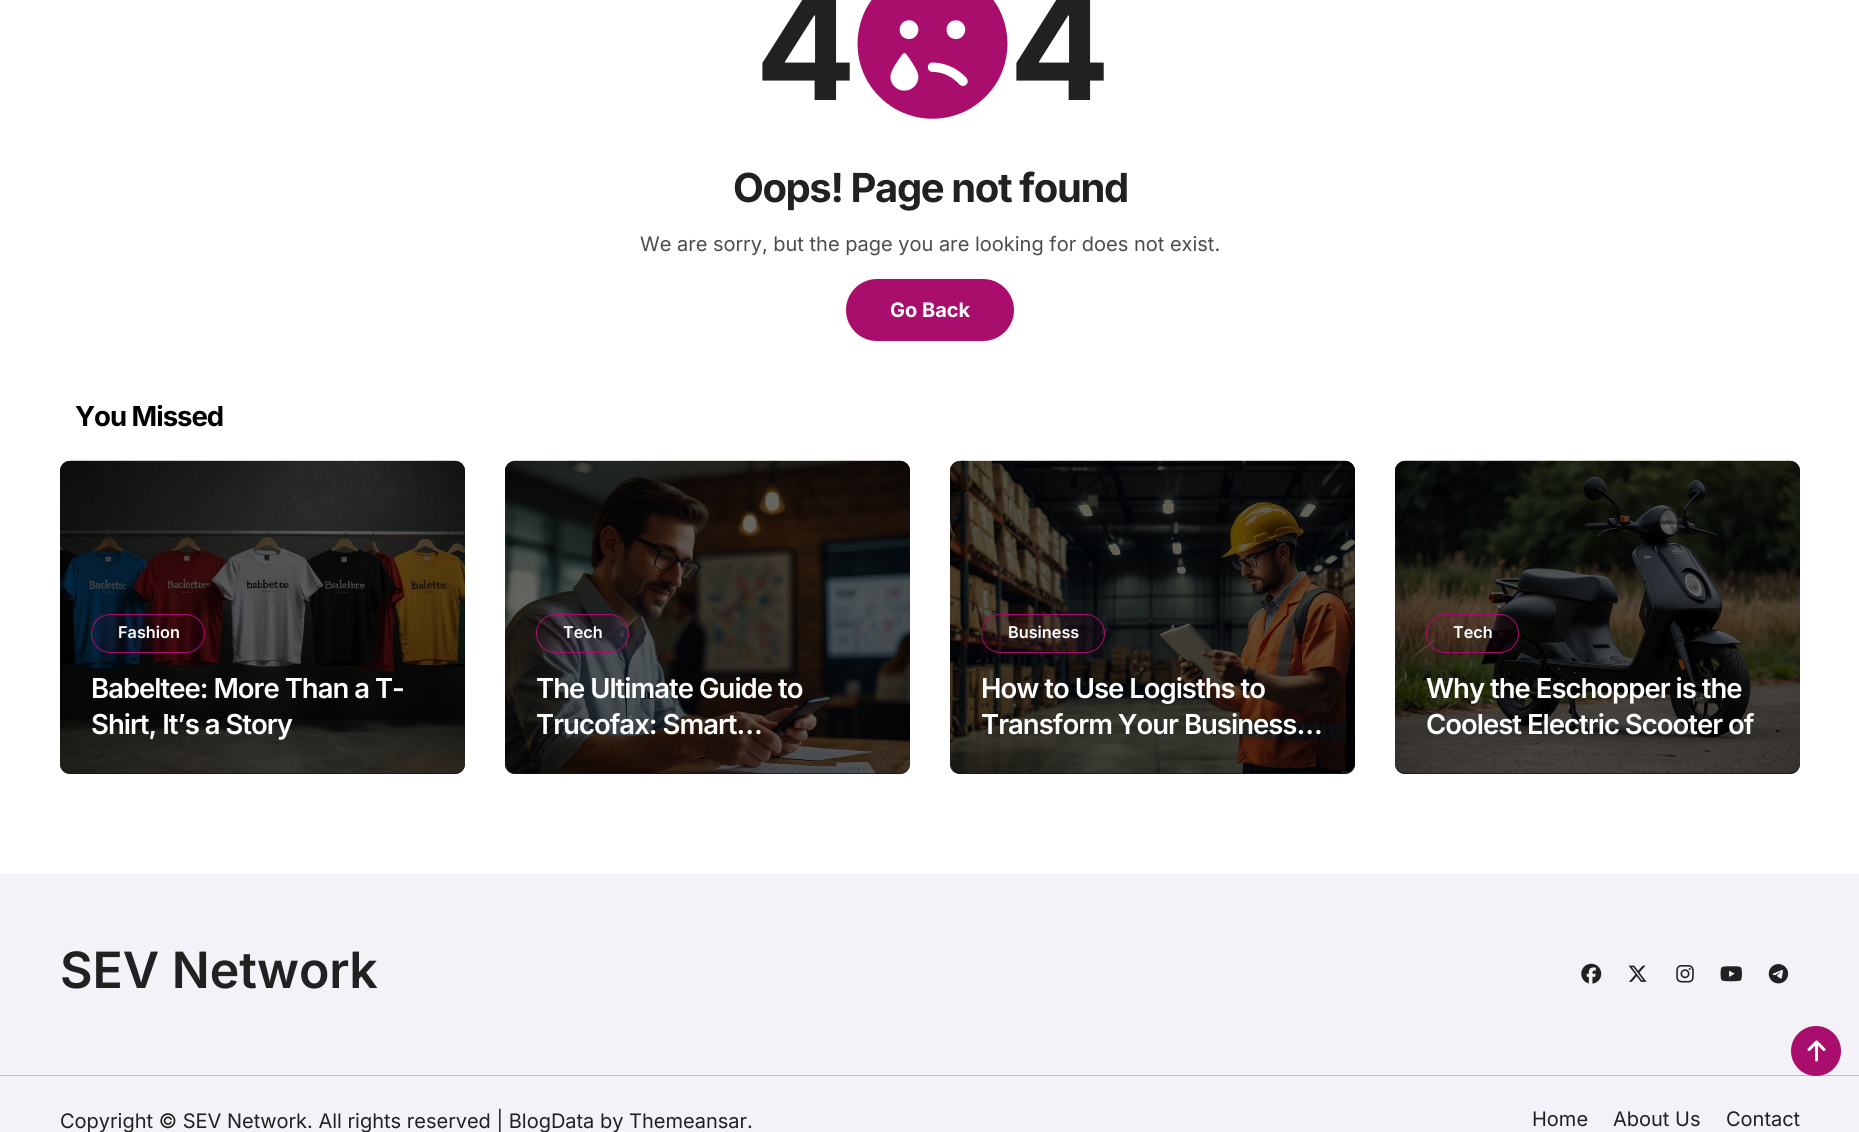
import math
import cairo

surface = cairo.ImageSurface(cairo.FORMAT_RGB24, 1859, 1132)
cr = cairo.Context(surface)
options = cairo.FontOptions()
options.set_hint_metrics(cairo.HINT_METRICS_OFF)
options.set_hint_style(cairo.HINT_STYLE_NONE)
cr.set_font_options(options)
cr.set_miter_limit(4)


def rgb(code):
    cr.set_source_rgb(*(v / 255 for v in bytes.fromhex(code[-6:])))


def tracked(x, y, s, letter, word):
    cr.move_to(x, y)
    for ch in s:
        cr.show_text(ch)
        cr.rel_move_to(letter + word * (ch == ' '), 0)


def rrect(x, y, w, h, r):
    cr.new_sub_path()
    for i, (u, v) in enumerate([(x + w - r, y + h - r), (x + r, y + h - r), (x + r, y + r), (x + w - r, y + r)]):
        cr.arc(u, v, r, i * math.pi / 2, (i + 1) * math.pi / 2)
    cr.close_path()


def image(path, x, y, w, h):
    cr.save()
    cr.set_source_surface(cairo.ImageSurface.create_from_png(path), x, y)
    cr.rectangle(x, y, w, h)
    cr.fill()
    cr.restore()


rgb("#ffffff")
cr.paint()
image("img/1.png", 857, 0, 151, 119)
rgb("#a90e6d")
rrect(846, 279, 168, 62, 31)
cr.fill()
rgb("#333333")
rrect(60, 461, 405, 313, 10)
cr.fill()
image("img/2.png", 60, 460, 405, 314)
cr.set_source_rgba(0, 0, 0, 0.6)
rrect(60, 461, 405, 313, 10)
cr.fill()
rrect(91.5, 614.5, 113, 38, 19)
rgb("#a90e6d")
cr.set_line_width(1)
cr.stroke()
cr.set_source_rgba(0.663, 0.055, 0.427, 0.05)
cr.rectangle(93, 615, 111, 36)
cr.fill()
rgb("#333333")
rrect(505, 461, 405, 313, 10)
cr.fill()
image("img/3.png", 505, 460, 405, 314)
cr.set_source_rgba(0, 0, 0, 0.6)
rrect(505, 461, 405, 313, 10)
cr.fill()
rrect(536.5, 614.5, 92, 38, 19)
rgb("#a90e6d")
cr.stroke()
cr.set_source_rgba(0.663, 0.055, 0.427, 0.05)
cr.rectangle(538, 615, 90, 36)
cr.fill()
rgb("#333333")
rrect(950, 461, 405, 313, 10)
cr.fill()
image("img/4.png", 950, 460, 405, 314)
cr.set_source_rgba(0, 0, 0, 0.6)
rrect(950, 461, 405, 313, 10)
cr.fill()
rrect(981.5, 614.5, 123, 38, 19)
rgb("#a90e6d")
cr.stroke()
cr.set_source_rgba(0.663, 0.055, 0.427, 0.05)
cr.rectangle(983, 615, 121, 36)
cr.fill()
rgb("#333333")
rrect(1395, 461, 405, 313, 10)
cr.fill()
image("img/5.png", 1395, 460, 405, 314)
cr.set_source_rgba(0, 0, 0, 0.6)
rrect(1395, 461, 405, 313, 10)
cr.fill()
rrect(1426.5, 614.5, 92, 38, 19)
rgb("#a90e6d")
cr.stroke()
cr.set_source_rgba(0.663, 0.055, 0.427, 0.05)
cr.rectangle(1428, 615, 90, 36)
cr.fill()
rgb("#f2f2f8")
cr.rectangle(0, 874, 1859, 258)
cr.fill()
image("img/6.png", 1581, 963, 21, 21)
image("img/7.png", 1628, 965, 19, 17)
image("img/8.png", 1676, 965, 18, 18)
image("img/9.png", 1720, 966, 22, 16)
image("img/10.png", 1768, 964, 21, 20)
rgb("#bdbdbd")
cr.rectangle(0, 1075, 1859, 1)
cr.fill()
rgb("#a90e6d")
cr.arc(1816, 1051, 25, 0, 2 * math.pi)
cr.fill()
image("img/11.png", 1807, 1040, 19, 22)
cr.select_font_face("Inter", cairo.FONT_SLANT_NORMAL, cairo.FONT_WEIGHT_BOLD)
cr.set_font_size(150)
rgb("#212121")
tracked(755, 100, "4", -5, 0)
tracked(1009, 100, "4", -5, 0)
cr.set_font_size(40)
tracked(733, 202, "Oops! Page not found", -1.4, 0)
cr.select_font_face("Inter")
cr.set_font_size(20)
rgb("#4c4c4c")
cr.move_to(640, 251)
cr.show_text("We are sorry, but the page you are looking for does not exist.")
cr.select_font_face("Inter", cairo.FONT_SLANT_NORMAL, cairo.FONT_WEIGHT_BOLD)
rgb("#ffffff")
cr.move_to(890, 317)
cr.show_text("Go Back")
cr.set_font_size(27.5)
rgb("#000000")
tracked(75, 426, "You Missed", -1, 0)
cr.select_font_face("Inter SemiBold")
cr.set_font_size(16.25)
rgb("#ffffff")
cr.move_to(118, 638)
cr.show_text("Fashion")
cr.set_font_size(27.5)
tracked(91, 698, "Babeltee: More Than a T-", -1, 0)
tracked(91, 734, "Shirt, It’s a Story", -1, 0)
cr.set_font_size(16.25)
cr.move_to(563, 638)
cr.show_text("Tech")
cr.set_font_size(27.5)
tracked(536, 698, "The Ultimate Guide to", -1, 0)
tracked(536, 734, "Trucofax: Smart…", -1, 0)
cr.set_font_size(16.25)
cr.move_to(1008, 638)
cr.show_text("Business")
cr.set_font_size(27.5)
tracked(981, 698, "How to Use Logisths to", -1, 0)
tracked(981, 734, "Transform Your Business…", -1, 0)
cr.set_font_size(16.25)
cr.move_to(1453, 638)
cr.show_text("Tech")
cr.set_font_size(27.5)
tracked(1426, 698, "Why the Eschopper is the", -1, 0)
tracked(1426, 734, "Coolest Electric Scooter of", -1, 0)
cr.set_font_size(50)
rgb("#212121")
cr.move_to(60, 988)
cr.show_text("SEV Network")
cr.select_font_face("Inter")
cr.set_font_size(20)
for x, y, s in [
    (60, 1128, "Copyright © SEV Network. All rights reserved | BlogData by Themeansar."),
    (1532, 1126, "Home"),
    (1613, 1126, "About Us"),
    (1726, 1126, "Contact"),
]:
    cr.move_to(x, y)
    cr.show_text(s)
surface.write_to_png("page.png")
